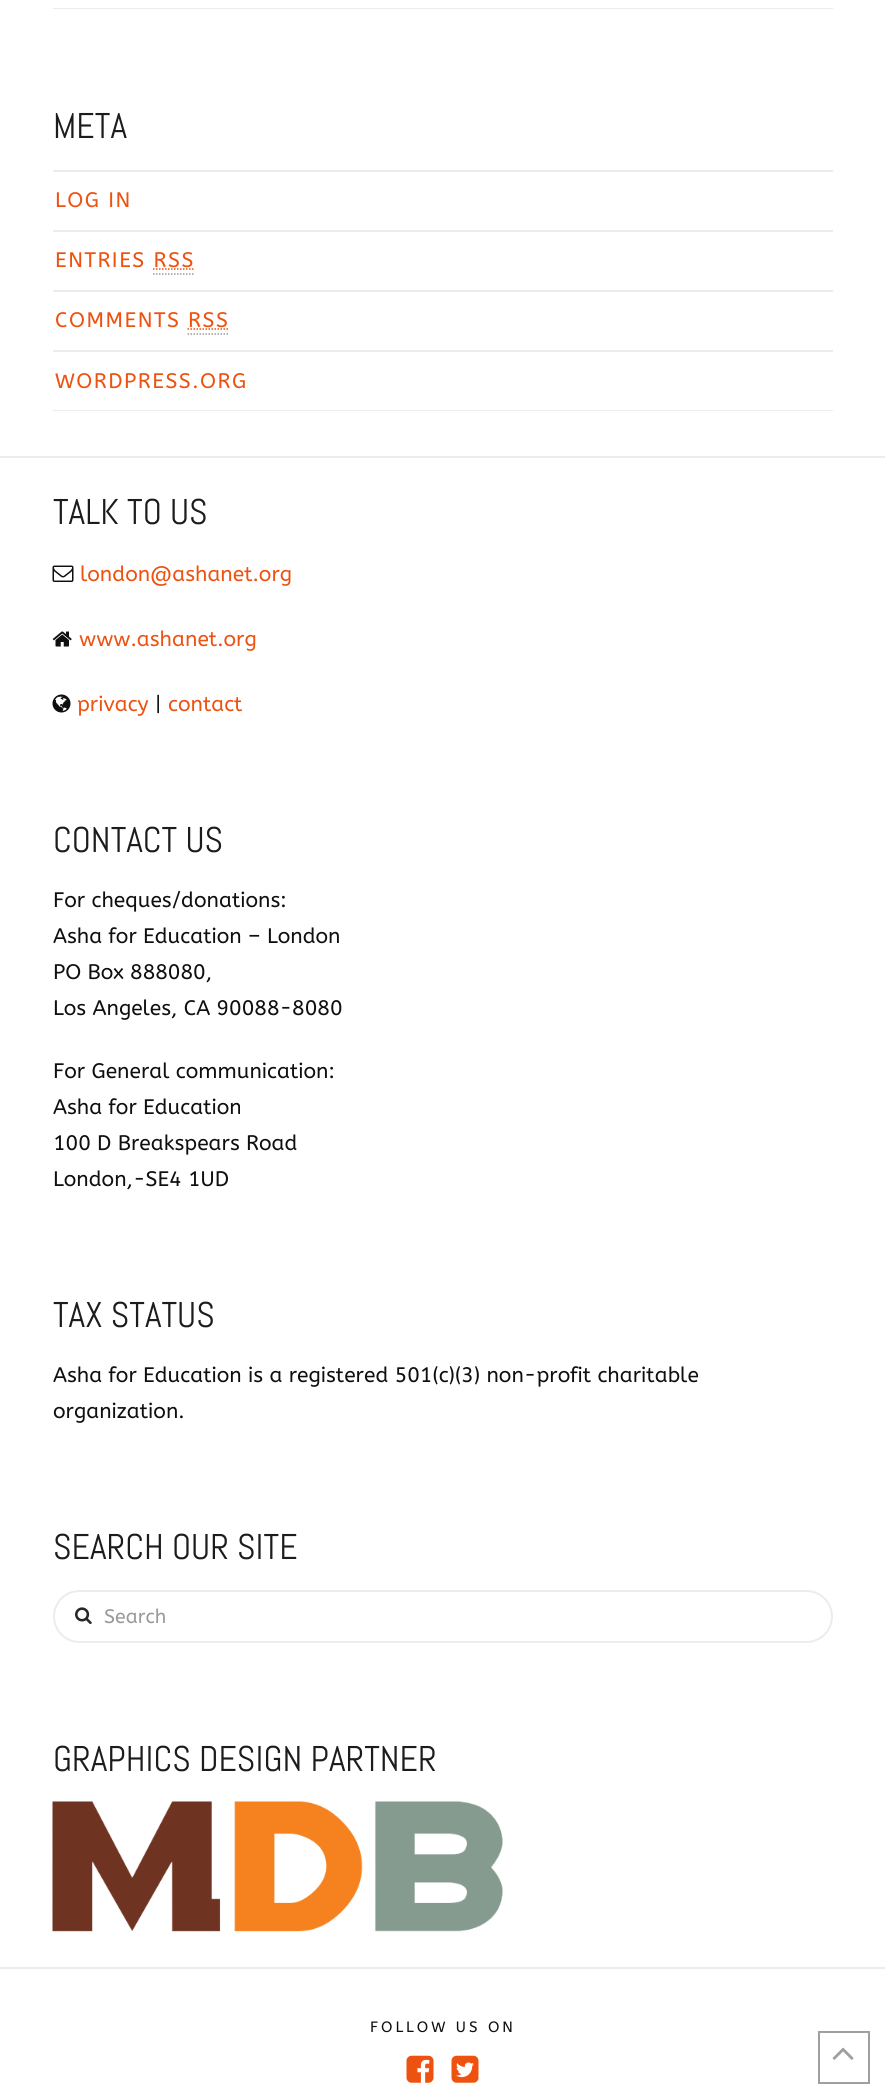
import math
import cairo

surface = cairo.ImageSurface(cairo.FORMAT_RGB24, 885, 2098)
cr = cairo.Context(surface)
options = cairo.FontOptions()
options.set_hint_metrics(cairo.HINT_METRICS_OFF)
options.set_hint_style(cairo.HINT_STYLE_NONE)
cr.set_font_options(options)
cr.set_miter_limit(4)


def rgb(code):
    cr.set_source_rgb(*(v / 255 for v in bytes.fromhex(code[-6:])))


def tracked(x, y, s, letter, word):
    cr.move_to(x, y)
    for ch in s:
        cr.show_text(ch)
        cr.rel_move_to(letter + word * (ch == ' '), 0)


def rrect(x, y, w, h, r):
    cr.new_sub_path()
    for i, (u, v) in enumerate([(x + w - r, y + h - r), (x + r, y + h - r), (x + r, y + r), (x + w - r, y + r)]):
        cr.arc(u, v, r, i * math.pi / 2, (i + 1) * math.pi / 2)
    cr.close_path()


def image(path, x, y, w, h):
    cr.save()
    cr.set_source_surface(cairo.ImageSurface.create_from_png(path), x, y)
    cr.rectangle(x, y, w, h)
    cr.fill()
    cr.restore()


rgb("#ffffff")
cr.paint()
for x, y, w, h, color in [
    (53, 8, 780, 1, "#ececec"),
    (53, 170, 780, 2, "#ececec"),
    (53, 230, 780, 2, "#ececec"),
    (53, 290, 780, 2, "#ececec"),
]:
    rgb(color)
    cr.rectangle(x, y, w, h)
    cr.fill()
cr.new_path()
cr.move_to(153, 274)
cr.line_to(195, 274)
rgb("#999999")
cr.set_line_width(1.5)
cr.set_dash([1.5, 1.5])
cr.stroke()
cr.new_path()
cr.move_to(153, 269)
cr.line_to(194.5, 269)
rgb("#ed5210")
cr.stroke()
rgb("#ececec")
cr.rectangle(53, 350, 780, 2)
cr.fill()
cr.new_path()
cr.move_to(187.5, 334)
cr.line_to(229.5, 334)
rgb("#999999")
cr.stroke()
cr.new_path()
cr.move_to(187.5, 329)
cr.line_to(229, 329)
rgb("#ed5210")
cr.stroke()
rgb("#ececec")
cr.rectangle(53, 410, 780, 1)
cr.fill()
cr.rectangle(0, 456, 885, 2)
cr.fill()
image("img/1.png", 52, 565, 22, 17)
image("img/2.png", 52, 631, 20, 16)
image("img/3.png", 52, 694, 19, 19)
rrect(54, 1591, 778, 51, 25.5)
cr.set_line_width(2)
cr.set_dash([])
cr.stroke()
image("img/4.png", 75, 1607, 17, 18)
image("img/5.png", 52, 1801, 451, 131)
cr.rectangle(0, 1967, 885, 2)
cr.fill()
image("img/6.png", 406, 2055, 28, 28)
image("img/7.png", 451, 2055, 28, 28)
cr.rectangle(819, 2032, 50, 51)
rgb("#9f9f9f")
cr.stroke()
image("img/8.png", 832, 2047, 22, 13)
cr.select_font_face("Abel")
cr.set_font_size(35.75)
rgb("#1c1c1c")
cr.move_to(53, 138)
cr.show_text("META")
cr.select_font_face("ABeeZee")
cr.set_font_size(21)
rgb("#ed5210")
for x, y, s in [
    (55, 207, "LOG IN"),
    (55, 267, "ENTRIES RSS"),
    (55, 327, "COMMENTS RSS"),
    (55, 388, "WORDPRESS.ORG"),
]:
    tracked(x, y, s, 1.5, 0)
cr.select_font_face("Abel")
cr.set_font_size(35.75)
rgb("#1c1c1c")
cr.move_to(53, 524)
cr.show_text("TALK TO US")
cr.select_font_face("ABeeZee")
cr.set_font_size(21)
rgb("#ed5210")
for x, y, s in [
    (80, 581, "london@ashanet.org"),
    (79, 646, "www.ashanet.org"),
    (77, 711, "privacy"),
]:
    cr.move_to(x, y)
    cr.show_text(s)
rgb("#0f0f0f")
cr.move_to(155, 711)
cr.show_text("|")
rgb("#ed5210")
cr.move_to(168, 711)
cr.show_text("contact")
cr.select_font_face("Abel")
cr.set_font_size(35.75)
rgb("#1c1c1c")
cr.move_to(53, 852)
cr.show_text("CONTACT US")
cr.select_font_face("ABeeZee")
cr.set_font_size(21)
rgb("#0f0f0f")
for x, y, s in [
    (53, 907, "For cheques/donations:"),
    (53, 943, "Asha for Education – London"),
    (53, 979, "PO Box 888080,"),
    (53, 1015, "Los Angeles, CA 90088-8080"),
    (53, 1078, "For General communication:"),
    (53, 1114, "Asha for Education"),
    (53, 1150, "100 D Breakspears Road"),
    (53, 1186, "London,-SE4 1UD"),
]:
    cr.move_to(x, y)
    cr.show_text(s)
cr.select_font_face("Abel")
cr.set_font_size(35.75)
rgb("#1c1c1c")
cr.move_to(53, 1327)
cr.show_text("TAX STATUS")
cr.select_font_face("ABeeZee")
cr.set_font_size(21)
rgb("#0f0f0f")
cr.move_to(53, 1382)
cr.show_text("Asha for Education is a registered 501(c)(3) non-profit charitable")
cr.move_to(53, 1418)
cr.show_text("organization.")
cr.select_font_face("Abel")
cr.set_font_size(35.75)
rgb("#1c1c1c")
cr.move_to(53, 1559)
cr.show_text("SEARCH OUR SITE")
cr.select_font_face("ABeeZee")
cr.set_font_size(19.5)
rgb("#999999")
cr.move_to(104, 1623)
cr.show_text("Search")
cr.select_font_face("Abel")
cr.set_font_size(35.75)
rgb("#1c1c1c")
cr.move_to(53, 1771)
cr.show_text("GRAPHICS DESIGN PARTNER")
cr.select_font_face("ABeeZee")
cr.set_font_size(15)
rgb("#0f0f0f")
tracked(370, 2032, "FOLLOW US ON", 3, 0)
surface.write_to_png("page.png")
